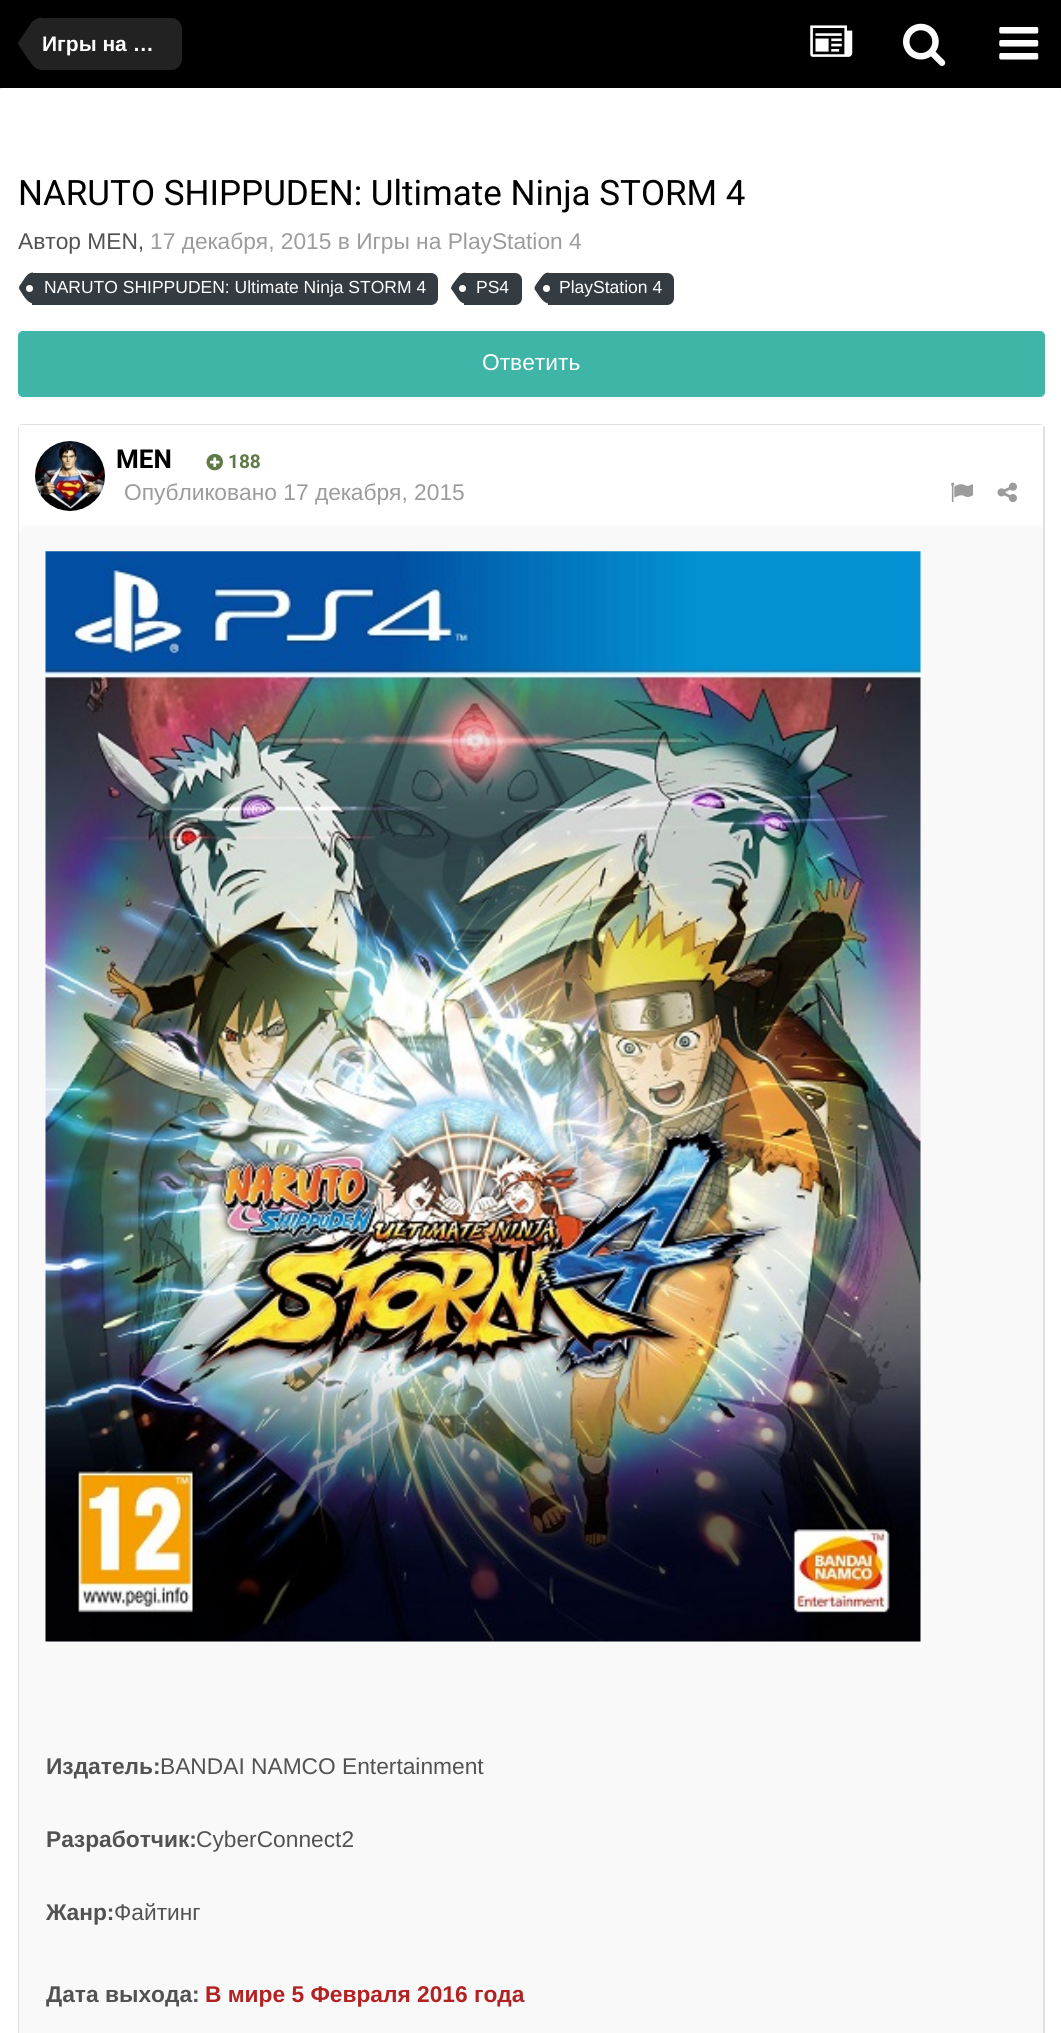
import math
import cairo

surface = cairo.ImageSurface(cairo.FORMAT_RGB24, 1061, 2033)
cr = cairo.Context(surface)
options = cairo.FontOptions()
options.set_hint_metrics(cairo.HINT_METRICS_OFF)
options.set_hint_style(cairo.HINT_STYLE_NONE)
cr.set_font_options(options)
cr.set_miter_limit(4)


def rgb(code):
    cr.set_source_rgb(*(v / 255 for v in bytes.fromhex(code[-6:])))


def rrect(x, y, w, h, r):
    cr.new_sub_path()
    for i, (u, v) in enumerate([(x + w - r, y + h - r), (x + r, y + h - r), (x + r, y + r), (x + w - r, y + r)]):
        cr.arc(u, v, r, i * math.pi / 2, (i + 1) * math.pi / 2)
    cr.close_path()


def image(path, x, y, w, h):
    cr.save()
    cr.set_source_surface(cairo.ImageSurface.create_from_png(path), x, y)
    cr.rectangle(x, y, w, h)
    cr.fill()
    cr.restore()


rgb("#eef2f5")
cr.paint()
rgb("#000000")
cr.rectangle(0, 0, 1061, 88)
cr.fill()
rgb("#222222")
cr.new_path()
cr.move_to(42, 18)
cr.line_to(171, 18)
cr.curve_to(177, 18, 182, 23, 182, 29)
cr.line_to(182, 59)
cr.curve_to(182, 65, 177, 70, 171, 70)
cr.line_to(42, 70)
cr.close_path()
cr.fill()
cr.new_path()
cr.move_to(18, 44)
cr.line_to(42, 44)
cr.line_to(42, 70)
cr.curve_to(35.5, 70, 31.5, 64, 28, 59)
cr.close_path()
cr.move_to(42, 17.5)
cr.line_to(42, 44)
cr.line_to(18, 44)
cr.line_to(18, 42.5)
cr.line_to(30.5, 24)
cr.curve_to(32, 22, 31.5, 22, 33, 21)
cr.curve_to(35.5, 19, 39, 17.5, 42, 17.5)
cr.close_path()
cr.fill()
image("img/1.png", 810, 25, 43, 32)
image("img/2.png", 903, 23, 43, 43)
image("img/3.png", 999, 27, 40, 33)
rgb("#ffffff")
rrect(0, 88, 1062, 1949, 4)
cr.fill()
rgb("#353c41")
cr.new_path()
cr.move_to(32, 273)
cr.line_to(431, 273)
cr.curve_to(435, 273, 438, 276, 438, 280)
cr.line_to(438, 298)
cr.curve_to(438, 302, 435, 305, 431, 305)
cr.line_to(32, 305)
cr.close_path()
cr.fill()
cr.set_fill_rule(cairo.FILL_RULE_EVEN_ODD)
cr.new_path()
cr.move_to(19.5, 289.5)
cr.line_to(19, 288)
cr.line_to(33, 288)
cr.line_to(33, 288.5)
cr.line_to(33, 288)
cr.line_to(33, 303.5)
cr.curve_to(27, 303, 22.5, 294, 19.5, 289.5)
cr.close_path()
cr.move_to(33, 288)
cr.line_to(33, 288)
cr.close_path()
cr.move_to(21.5, 283)
cr.curve_to(24.5, 279, 27, 272.5, 33, 272.5)
cr.line_to(33, 287.5)
cr.line_to(33, 288)
cr.line_to(19, 288)
cr.curve_to(19, 286, 20.5, 284.5, 21.5, 283)
cr.close_path()
cr.move_to(33, 288)
cr.line_to(33, 288)
cr.close_path()
cr.fill()
rgb("#ffffff")
cr.arc(29.5, 288.5, 3.5, 0, 2 * math.pi)
cr.fill()
rgb("#353c41")
cr.new_path()
cr.move_to(464, 273)
cr.line_to(515, 273)
cr.curve_to(519, 273, 522, 276, 522, 280)
cr.line_to(522, 298)
cr.curve_to(522, 302, 519, 305, 515, 305)
cr.line_to(464, 305)
cr.close_path()
cr.fill()
cr.set_fill_rule(cairo.FILL_RULE_WINDING)
cr.new_path()
cr.move_to(451, 288.5)
cr.line_to(451, 288)
cr.line_to(465.5, 288)
cr.line_to(465, 288.5)
cr.line_to(465.5, 288)
cr.line_to(465.5, 303.5)
cr.curve_to(463, 303.5, 461, 302.5, 458.5, 299.5)
cr.close_path()
cr.move_to(455.5, 280.5)
cr.curve_to(458, 277.5, 460.5, 272.5, 465.5, 272.5)
cr.line_to(465.5, 287.5)
cr.line_to(465, 287.5)
cr.line_to(465.5, 288)
cr.line_to(451, 288)
cr.curve_to(451.5, 285.5, 454, 282.5, 455.5, 280.5)
cr.close_path()
cr.fill()
rgb("#ffffff")
cr.arc(462.5, 288.5, 3.5, 0, 2 * math.pi)
cr.fill()
rgb("#353c41")
cr.new_path()
cr.move_to(548, 273)
cr.line_to(667, 273)
cr.curve_to(671, 273, 674, 276, 674, 280)
cr.line_to(674, 298)
cr.curve_to(674, 302, 671, 305, 667, 305)
cr.line_to(548, 305)
cr.close_path()
cr.fill()
cr.set_fill_rule(cairo.FILL_RULE_EVEN_ODD)
cr.new_path()
cr.move_to(535.5, 290.5)
cr.curve_to(535, 290, 534.5, 289, 534.5, 288)
cr.line_to(548.5, 288)
cr.line_to(548.5, 303.5)
cr.curve_to(543, 303, 538.5, 295, 535.5, 290.5)
cr.close_path()
cr.move_to(548.5, 288)
cr.line_to(548.5, 288)
cr.close_path()
cr.move_to(540, 279)
cr.curve_to(542, 276, 544.5, 272.5, 548.5, 272.5)
cr.line_to(548.5, 288)
cr.line_to(534.5, 288)
cr.curve_to(534.5, 286, 538.5, 281, 540, 279)
cr.close_path()
cr.move_to(548.5, 288)
cr.line_to(548.5, 288)
cr.close_path()
cr.fill()
rgb("#ffffff")
cr.arc(546.5, 288.5, 3.5, 0, 2 * math.pi)
cr.fill()
rgb("#3fb5a8")
rrect(18, 331, 1027, 66, 5)
cr.fill()
rgb("#e0e0e0")
cr.set_fill_rule(cairo.FILL_RULE_WINDING)
cr.new_path()
cr.move_to(23, 424)
cr.curve_to(22, 424, 20, 424, 19, 425)
cr.line_to(20, 426)
cr.line_to(23, 425)
cr.line_to(1040, 425)
cr.line_to(1042, 426)
cr.line_to(1043, 425)
cr.line_to(1040, 424)
cr.close_path()
cr.fill()
cr.new_path()
cr.move_to(1043, 425)
cr.line_to(1045, 428)
cr.line_to(1045, 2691)
cr.line_to(1044, 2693)
cr.line_to(1043, 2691)
cr.curve_to(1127, 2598, 1043, 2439, 1043, 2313)
cr.line_to(1043, 429)
cr.line_to(1042, 426)
cr.close_path()
cr.fill()
cr.new_path()
cr.move_to(19, 425)
cr.curve_to(18, 426, 18, 428, 18, 429)
cr.line_to(18, 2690)
cr.line_to(19, 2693)
cr.line_to(20, 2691)
cr.line_to(19, 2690)
cr.line_to(19, 429)
cr.line_to(20, 426)
cr.close_path()
cr.fill()
rgb("#ffffff")
cr.rectangle(19, 425, 1024, 4)
cr.fill()
image("img/4.png", 35, 441, 70, 70)
image("img/5.png", 206, 453, 17, 18)
rgb("#f9f9f9")
cr.new_path()
cr.move_to(28, 525)
cr.line_to(1038, 525)
cr.curve_to(1041, 525, 1043, 527, 1043, 530)
cr.line_to(1043, 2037)
cr.curve_to(1043, 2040, 1041, 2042, 1038, 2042)
cr.line_to(24, 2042)
cr.curve_to(21, 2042, 19, 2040, 19, 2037)
cr.line_to(19, 534)
cr.curve_to(19, 529, 23, 525, 28, 525)
cr.close_path()
cr.fill()
image("img/6.png", 951, 482, 22, 21)
image("img/7.png", 997, 482, 20, 21)
image("img/8.png", 45, 551, 876, 1091)
cr.select_font_face("Liberation Sans", cairo.FONT_SLANT_NORMAL, cairo.FONT_WEIGHT_BOLD)
cr.set_font_size(21)
rgb("#ffffff")
cr.move_to(42, 51)
cr.show_text("Игры на …")
cr.select_font_face("Roboto")
cr.set_font_size(35)
rgb("#000000")
cr.move_to(18, 205)
cr.show_text("NARUTO SHIPPUDEN: Ultimate Ninja STORM 4")
cr.select_font_face("Liberation Sans")
cr.set_font_size(22.75)
rgb("#525252")
cr.move_to(18, 249)
cr.show_text("Автор MEN,")
rgb("#9c9c9c")
cr.move_to(150, 249)
cr.show_text("17 декабря, 2015 в Игры на PlayStation 4")
cr.set_font_size(17.5)
rgb("#ffffff")
for x, y, s in [
    (44, 293, "NARUTO SHIPPUDEN: Ultimate Ninja STORM 4"),
    (476, 293, "PS4"),
    (559, 293, "PlayStation 4"),
]:
    cr.move_to(x, y)
    cr.show_text(s)
cr.set_font_size(22.75)
cr.move_to(482, 370)
cr.show_text("Ответить")
cr.select_font_face("Roboto", cairo.FONT_SLANT_NORMAL, cairo.FONT_WEIGHT_BOLD)
cr.set_font_size(26)
rgb("#000000")
cr.move_to(116, 468)
cr.show_text("MEN")
cr.set_font_size(19)
rgb("#5f7a47")
cr.move_to(228, 468)
cr.show_text("188")
cr.select_font_face("Liberation Sans")
cr.set_font_size(22.75)
rgb("#9c9c9c")
cr.move_to(124, 500)
cr.show_text("Опубликовано 17 декабря, 2015")
cr.select_font_face("Liberation Sans", cairo.FONT_SLANT_NORMAL, cairo.FONT_WEIGHT_BOLD)
rgb("#525252")
cr.move_to(46, 1774)
cr.show_text("Издатель:")
cr.select_font_face("Liberation Sans")
cr.move_to(160, 1774)
cr.show_text("BANDAI NAMCO Entertainment")
cr.select_font_face("Liberation Sans", cairo.FONT_SLANT_NORMAL, cairo.FONT_WEIGHT_BOLD)
cr.move_to(46, 1847)
cr.show_text("Разработчик:")
cr.select_font_face("Liberation Sans")
cr.move_to(196, 1847)
cr.show_text("CyberConnect2")
cr.select_font_face("Liberation Sans", cairo.FONT_SLANT_NORMAL, cairo.FONT_WEIGHT_BOLD)
cr.move_to(46, 1920)
cr.show_text("Жанр:")
cr.select_font_face("Liberation Sans")
cr.move_to(114, 1920)
cr.show_text("Файтинг")
cr.select_font_face("Liberation Sans", cairo.FONT_SLANT_NORMAL, cairo.FONT_WEIGHT_BOLD)
cr.move_to(46, 2002)
cr.show_text("Дата выхода:")
rgb("#b22222")
cr.move_to(205, 2002)
cr.show_text("В мире 5 Февраля 2016 года")
surface.write_to_png("page.png")
